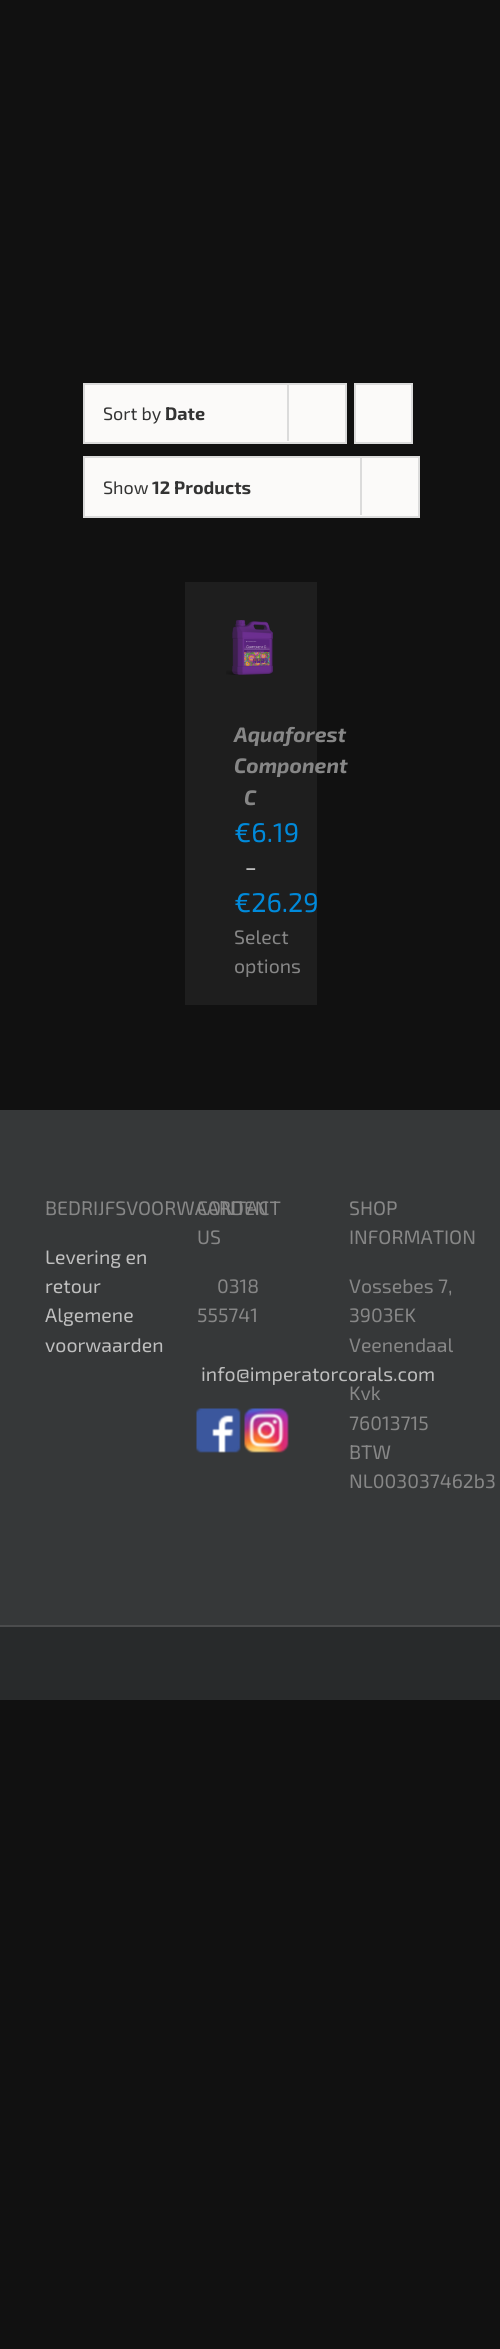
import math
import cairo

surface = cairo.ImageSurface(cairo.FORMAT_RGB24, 500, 2349)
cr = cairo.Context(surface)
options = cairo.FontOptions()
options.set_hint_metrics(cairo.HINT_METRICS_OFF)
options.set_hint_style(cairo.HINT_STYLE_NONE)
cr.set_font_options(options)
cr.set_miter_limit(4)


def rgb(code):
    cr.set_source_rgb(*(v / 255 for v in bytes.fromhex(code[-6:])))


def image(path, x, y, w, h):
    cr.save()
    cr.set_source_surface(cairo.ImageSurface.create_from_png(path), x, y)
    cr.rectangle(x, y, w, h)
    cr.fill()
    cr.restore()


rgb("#111111")
cr.paint()
rgb("#fbfaf9")
cr.rectangle(84, 384, 262, 59)
cr.fill_preserve()
rgb("#dbdbdb")
cr.stroke()
cr.rectangle(287, 383, 2, 58)
cr.fill()
rgb("#fbfaf9")
cr.rectangle(355, 384, 57, 59)
cr.fill_preserve()
rgb("#dbdbdb")
cr.stroke()
rgb("#fbfaf9")
cr.rectangle(84, 457, 335, 60)
cr.fill_preserve()
rgb("#dbdbdb")
cr.stroke()
cr.rectangle(360, 456, 2, 59)
cr.fill()
rgb("#1e1e1e")
cr.rectangle(185, 582, 132, 423)
cr.fill()
image("img/1.png", 226, 620, 47, 55)
rgb("#363839")
cr.rectangle(0, 1110, 500, 515)
cr.fill()
image("img/2.png", 196, 1408, 45, 45)
image("img/3.png", 244, 1408, 45, 45)
rgb("#282a2b")
cr.rectangle(0, 1627, 500, 73)
cr.fill()
rgb("#4b4c4d")
cr.rectangle(0, 1625, 500, 2)
cr.fill()
cr.save()
cr.rectangle(104, 384, 199, 59)
cr.clip()
cr.select_font_face("Exo 2")
cr.set_font_size(18)
rgb("#333333")
cr.move_to(103, 420)
cr.show_text("Sort by")
cr.restore()
cr.select_font_face("Exo 2", cairo.FONT_SLANT_NORMAL, cairo.FONT_WEIGHT_BOLD)
cr.set_font_size(18)
rgb("#333333")
cr.move_to(165, 420)
cr.show_text("Date")
cr.select_font_face("Exo 2")
cr.move_to(103, 494)
cr.show_text("Show")
cr.select_font_face("Exo 2", cairo.FONT_SLANT_NORMAL, cairo.FONT_WEIGHT_BOLD)
cr.move_to(152, 494)
cr.show_text("12 Products")
cr.select_font_face("Exo 2", cairo.FONT_SLANT_ITALIC, cairo.FONT_WEIGHT_BOLD)
cr.set_font_size(21)
rgb("#878787")
for x, y, s in [
    (234, 742, "Aquaforest"),
    (234, 773, "Component"),
    (244, 805, "C"),
]:
    cr.move_to(x, y)
    cr.show_text(s)
cr.select_font_face("Exo 2")
cr.set_font_size(27)
rgb("#008adb")
cr.move_to(234, 842)
cr.show_text("€6.19")
cr.set_font_size(19.5)
rgb("#ffffff")
cr.move_to(245, 874)
cr.show_text("–")
cr.set_font_size(27)
rgb("#008adb")
cr.move_to(234, 912)
cr.show_text("€26.29")
cr.set_font_size(19.5)
rgb("#878787")
for x, y, s in [
    (234, 944, "Select"),
    (234, 973, "options"),
    (45, 1215, "BEDRIJFSVOORWAARDEN"),
]:
    cr.move_to(x, y)
    cr.show_text(s)
rgb("#bfbfbf")
for x, y, s in [
    (45, 1264, "Levering en"),
    (45, 1293, "retour"),
    (45, 1322, "Algemene"),
    (45, 1352, "voorwaarden"),
]:
    cr.move_to(x, y)
    cr.show_text(s)
rgb("#878787")
for x, y, s in [
    (197, 1215, "CONTACT"),
    (197, 1244, "US"),
    (217, 1293, "0318"),
    (197, 1322, "555741"),
]:
    cr.move_to(x, y)
    cr.show_text(s)
rgb("#bfbfbf")
cr.move_to(201, 1381)
cr.show_text("info@imperatorcorals.com")
rgb("#878787")
for x, y, s in [
    (349, 1215, "SHOP"),
    (349, 1244, "INFORMATION"),
    (349, 1293, "Vossebes 7,"),
    (349, 1322, "3903EK"),
    (349, 1352, "Veenendaal"),
    (349, 1400, "Kvk"),
    (349, 1430, "76013715"),
    (349, 1459, "BTW"),
    (349, 1488, "NL003037462b3"),
]:
    cr.move_to(x, y)
    cr.show_text(s)
surface.write_to_png("page.png")
